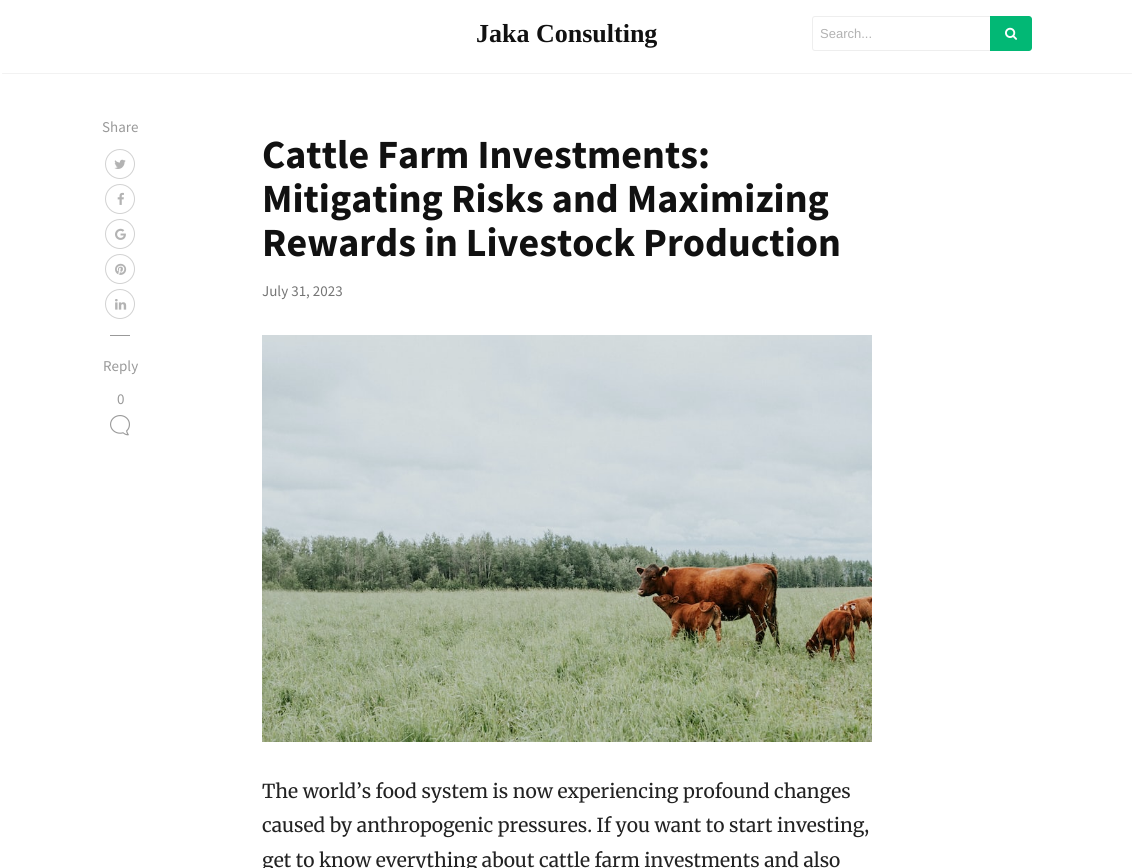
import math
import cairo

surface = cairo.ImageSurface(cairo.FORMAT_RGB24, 1134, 868)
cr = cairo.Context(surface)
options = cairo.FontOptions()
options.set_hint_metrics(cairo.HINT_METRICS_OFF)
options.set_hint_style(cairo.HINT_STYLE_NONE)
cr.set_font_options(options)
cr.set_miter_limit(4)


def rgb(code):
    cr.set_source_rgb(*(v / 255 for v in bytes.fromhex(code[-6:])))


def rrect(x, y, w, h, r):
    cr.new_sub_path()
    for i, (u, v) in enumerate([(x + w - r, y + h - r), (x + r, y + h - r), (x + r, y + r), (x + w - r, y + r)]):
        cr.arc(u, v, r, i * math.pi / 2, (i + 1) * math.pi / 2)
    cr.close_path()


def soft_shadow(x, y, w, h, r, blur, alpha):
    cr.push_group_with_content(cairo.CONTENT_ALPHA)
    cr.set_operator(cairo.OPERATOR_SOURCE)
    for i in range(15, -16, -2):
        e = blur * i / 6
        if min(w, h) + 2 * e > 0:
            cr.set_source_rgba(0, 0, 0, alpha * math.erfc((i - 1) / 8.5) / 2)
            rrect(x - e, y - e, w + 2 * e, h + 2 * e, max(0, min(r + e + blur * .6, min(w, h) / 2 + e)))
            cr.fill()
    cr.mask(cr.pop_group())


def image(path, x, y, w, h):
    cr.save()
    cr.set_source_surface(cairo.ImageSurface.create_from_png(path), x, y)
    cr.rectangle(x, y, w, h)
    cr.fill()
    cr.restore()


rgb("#ffffff")
cr.paint()
cr.save()
cr.rectangle(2, 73, 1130, 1)
cr.clip()
rgb("#000000")
soft_shadow(2, 4, 1130, 69, 0, 1, 0.15)
cr.restore()
cr.new_path()
cr.move_to(815, 16.5)
cr.line_to(991.5, 16.5)
cr.line_to(991.5, 50.5)
cr.line_to(815, 50.5)
cr.curve_to(813.5, 50.5, 812.5, 49.5, 812.5, 48)
cr.line_to(812.5, 19)
cr.curve_to(812.5, 17.5, 813.5, 16.5, 815, 16.5)
cr.close_path()
rgb("#eeeeee")
cr.set_line_width(1)
cr.stroke()
rgb("#02b875")
cr.new_path()
cr.move_to(990, 16)
cr.line_to(1029, 16)
cr.curve_to(1030.5, 16, 1032, 17.5, 1032, 19)
cr.line_to(1032, 48)
cr.curve_to(1032, 49.5, 1030.5, 51, 1029, 51)
cr.line_to(990, 51)
cr.close_path()
cr.fill()
image("img/1.png", 1005, 27, 12, 13)
cr.arc(120, 164, 14.5, 0, 2 * math.pi)
rgb("#d2d2d2")
cr.stroke()
image("img/2.png", 114, 159, 12, 10)
cr.arc(120, 199, 14.5, 0, 2 * math.pi)
cr.stroke()
image("img/3.png", 117, 192, 7, 13)
cr.arc(120, 234, 14.5, 0, 2 * math.pi)
cr.stroke()
image("img/4.png", 115, 228, 11, 12)
cr.arc(120, 269, 14.5, 0, 2 * math.pi)
cr.stroke()
image("img/5.png", 115, 263, 12, 12)
cr.arc(120, 304, 14.5, 0, 2 * math.pi)
cr.stroke()
image("img/6.png", 115, 299, 12, 11)
rgb("#999999")
cr.rectangle(110, 335, 20, 1)
cr.fill()
image("img/7.png", 110, 415, 20, 21)
image("img/8.png", 262, 335, 610, 407)
cr.select_font_face("Liberation Serif", cairo.FONT_SLANT_NORMAL, cairo.FONT_WEIGHT_BOLD)
cr.set_font_size(26)
rgb("#111111")
cr.move_to(476, 42)
cr.show_text("Jaka Consulting")
cr.select_font_face("Liberation Sans")
cr.set_font_size(13)
rgb("#b2b2b2")
cr.move_to(820, 38)
cr.show_text("Search...")
cr.select_font_face("Source Sans Pro")
cr.set_font_size(15)
rgb("#999999")
for x, y, s in [
    (102, 132, "Share"),
    (103, 371, "Reply"),
    (117, 404, "0"),
]:
    cr.move_to(x, y)
    cr.show_text(s)
cr.select_font_face("Source Sans Pro", cairo.FONT_SLANT_NORMAL, cairo.FONT_WEIGHT_BOLD)
cr.set_font_size(40)
rgb("#111111")
for x, y, s in [
    (262, 168, "Cattle Farm Investments:"),
    (262, 212, "Mitigating Risks and Maximizing"),
    (262, 256, "Rewards in Livestock Production"),
]:
    cr.move_to(x, y)
    cr.show_text(s)
cr.select_font_face("Source Sans Pro")
cr.set_font_size(15)
rgb("#757575")
cr.move_to(262, 296)
cr.show_text("July 31, 2023")
cr.select_font_face("Merriweather")
cr.set_font_size(19.2)
rgb("#222222")
for x, y, s in [
    (262, 798, "The world’s food system is now experiencing profound changes"),
    (262, 832, "caused by anthropogenic pressures. If you want to start investing,"),
    (262, 867, "get to know everything about cattle farm investments and also"),
]:
    cr.move_to(x, y)
    cr.show_text(s)
surface.write_to_png("page.png")
